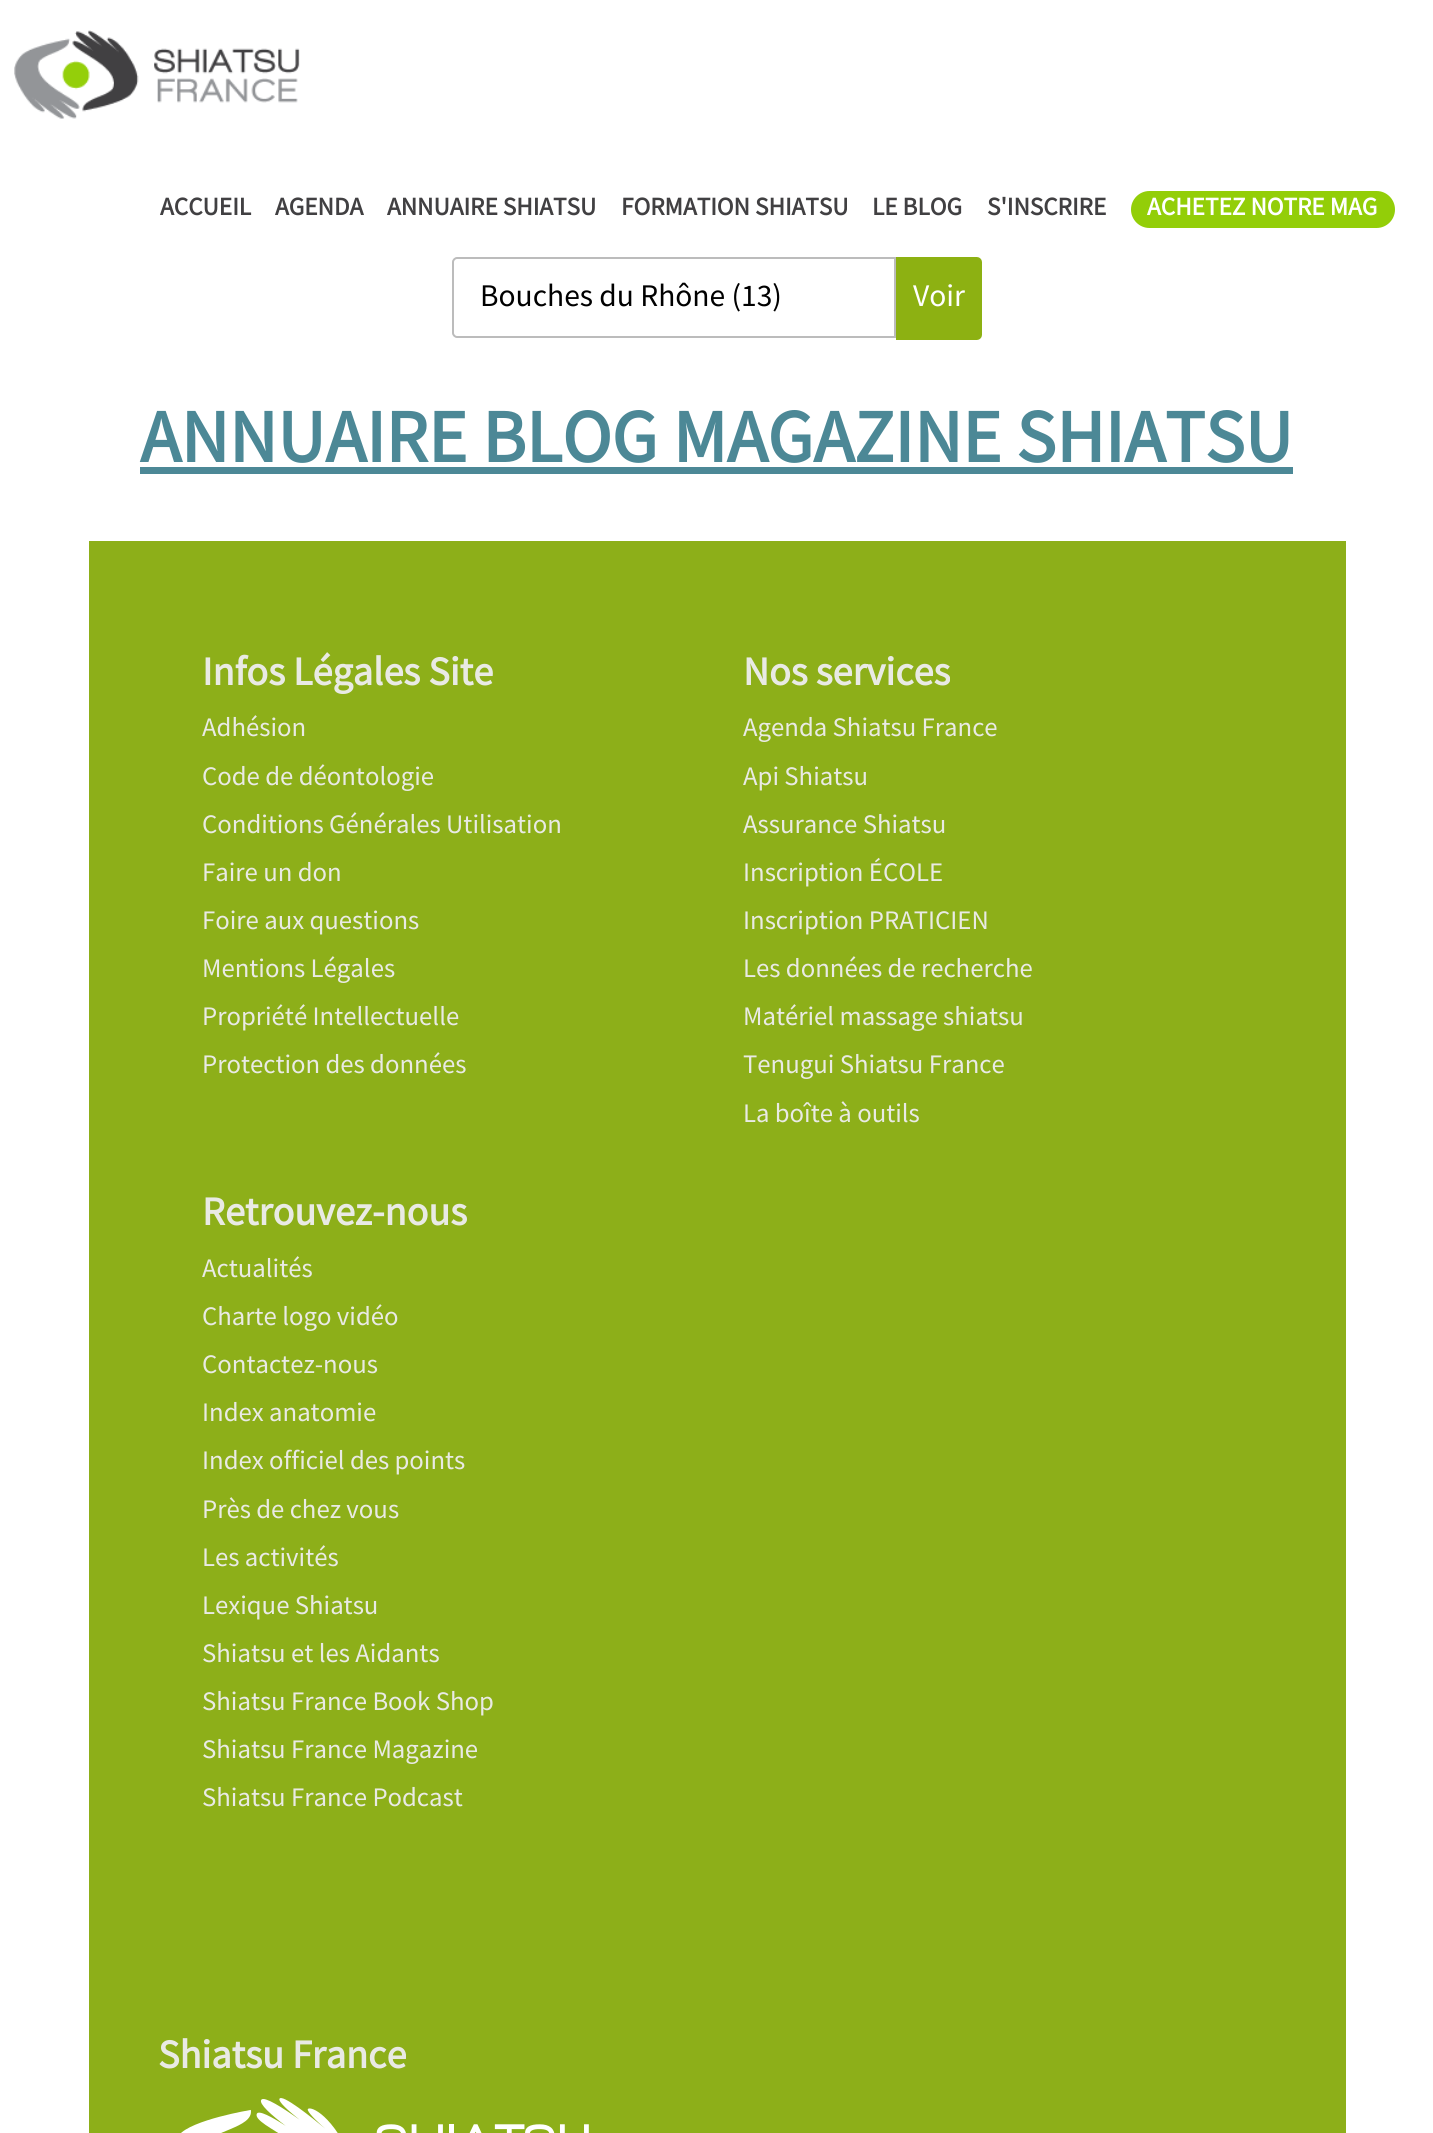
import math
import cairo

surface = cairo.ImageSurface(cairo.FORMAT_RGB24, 1433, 2133)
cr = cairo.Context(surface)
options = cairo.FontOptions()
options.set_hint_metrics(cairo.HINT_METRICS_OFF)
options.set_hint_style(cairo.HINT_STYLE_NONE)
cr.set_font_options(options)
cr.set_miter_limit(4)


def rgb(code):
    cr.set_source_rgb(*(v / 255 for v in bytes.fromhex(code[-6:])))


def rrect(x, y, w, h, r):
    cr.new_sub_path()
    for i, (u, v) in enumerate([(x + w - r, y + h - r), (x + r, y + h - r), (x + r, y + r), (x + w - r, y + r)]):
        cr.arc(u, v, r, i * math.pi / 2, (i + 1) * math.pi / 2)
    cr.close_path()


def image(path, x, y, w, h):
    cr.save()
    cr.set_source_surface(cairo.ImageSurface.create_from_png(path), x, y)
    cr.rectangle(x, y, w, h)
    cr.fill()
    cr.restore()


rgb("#ffffff")
cr.paint()
image("img/1.png", 14, 30, 286, 89)
rgb("#93ce08")
rrect(1131, 191, 264, 37, 18.5)
cr.fill()
cr.new_path()
cr.move_to(457, 258)
cr.line_to(895, 258)
cr.line_to(895, 337)
cr.line_to(457, 337)
cr.curve_to(455, 337, 453, 335, 453, 333)
cr.line_to(453, 262)
cr.curve_to(453, 260, 455, 258, 457, 258)
cr.close_path()
rgb("#bcbcbc")
cr.stroke()
rgb("#8db112")
cr.new_path()
cr.move_to(898, 259)
cr.line_to(977, 259)
cr.curve_to(978.5, 259, 980, 260.5, 980, 262)
cr.line_to(980, 335)
cr.curve_to(980, 336.5, 978.5, 338, 977, 338)
cr.line_to(898, 338)
cr.close_path()
cr.fill_preserve()
cr.set_line_width(4)
cr.stroke()
rgb("#4c8896")
cr.rectangle(140, 467, 1153, 7)
cr.fill()
rgb("#8daf19")
cr.rectangle(89, 541, 1257, 1592)
cr.fill()
image("img/2.png", 181, 2098, 408, 35)
cr.select_font_face("Source Sans Pro", cairo.FONT_SLANT_NORMAL, cairo.FONT_WEIGHT_BOLD)
cr.set_font_size(25.25)
rgb("#414042")
for x, y, s in [
    (160, 215, "ACCUEIL"),
    (275, 215, "AGENDA"),
    (387, 215, "ANNUAIRE SHIATSU"),
    (621, 215, "FORMATION SHIATSU"),
    (872, 215, "LE BLOG"),
    (987, 215, "S'INSCRIRE"),
]:
    cr.move_to(x, y)
    cr.show_text(s)
rgb("#ffffff")
cr.move_to(1147, 215)
cr.show_text("ACHETEZ NOTRE MAG")
cr.select_font_face("Source Sans Pro")
cr.set_font_size(31.5)
rgb("#000000")
cr.move_to(480, 306)
cr.show_text("Bouches du Rhône (13)")
rgb("#ffffff")
cr.move_to(913, 306)
cr.show_text("Voir")
cr.select_font_face("Source Sans Pro", cairo.FONT_SLANT_NORMAL, cairo.FONT_WEIGHT_BOLD)
cr.set_font_size(74.6)
rgb("#4c8896")
cr.move_to(140, 462)
cr.show_text("ANNUAIRE BLOG MAGAZINE SHIATSU")
cr.set_font_size(40.25)
rgb("#e9eae4")
cr.move_to(202, 685)
cr.show_text("Infos Légales Site")
cr.select_font_face("Source Sans Pro")
cr.set_font_size(26.75)
for x, y, s in [
    (202, 736, "Adhésion"),
    (202, 785, "Code de déontologie"),
    (202, 833, "Conditions Générales Utilisation"),
    (202, 881, "Faire un don"),
    (202, 929, "Foire aux questions"),
    (202, 977, "Mentions Légales"),
    (202, 1025, "Propriété Intellectuelle"),
    (202, 1073, "Protection des données"),
]:
    cr.move_to(x, y)
    cr.show_text(s)
cr.select_font_face("Source Sans Pro", cairo.FONT_SLANT_NORMAL, cairo.FONT_WEIGHT_BOLD)
cr.set_font_size(40.25)
cr.move_to(743, 685)
cr.show_text("Nos services")
cr.select_font_face("Source Sans Pro")
cr.set_font_size(26.75)
for x, y, s in [
    (743, 736, "Agenda Shiatsu France"),
    (743, 785, "Api Shiatsu"),
    (743, 833, "Assurance Shiatsu"),
    (743, 881, "Inscription ÉCOLE"),
    (743, 929, "Inscription PRATICIEN"),
    (743, 977, "Les données de recherche"),
    (743, 1025, "Matériel massage shiatsu"),
    (743, 1073, "Tenugui Shiatsu France"),
    (743, 1122, "La boîte à outils"),
]:
    cr.move_to(x, y)
    cr.show_text(s)
cr.select_font_face("Source Sans Pro", cairo.FONT_SLANT_NORMAL, cairo.FONT_WEIGHT_BOLD)
cr.set_font_size(40.25)
cr.move_to(202, 1225)
cr.show_text("Retrouvez-nous")
cr.select_font_face("Source Sans Pro")
cr.set_font_size(26.75)
for x, y, s in [
    (202, 1277, "Actualités"),
    (202, 1325, "Charte logo vidéo"),
    (202, 1373, "Contactez-nous"),
    (202, 1421, "Index anatomie"),
    (202, 1469, "Index officiel des points"),
    (202, 1518, "Près de chez vous"),
    (202, 1566, "Les activités"),
    (202, 1614, "Lexique Shiatsu"),
    (202, 1662, "Shiatsu et les Aidants"),
    (202, 1710, "Shiatsu France Book Shop"),
    (202, 1758, "Shiatsu France Magazine"),
    (202, 1806, "Shiatsu France Podcast"),
]:
    cr.move_to(x, y)
    cr.show_text(s)
cr.select_font_face("Source Sans Pro", cairo.FONT_SLANT_NORMAL, cairo.FONT_WEIGHT_BOLD)
cr.set_font_size(40.25)
cr.move_to(158, 2068)
cr.show_text("Shiatsu France")
surface.write_to_png("page.png")
